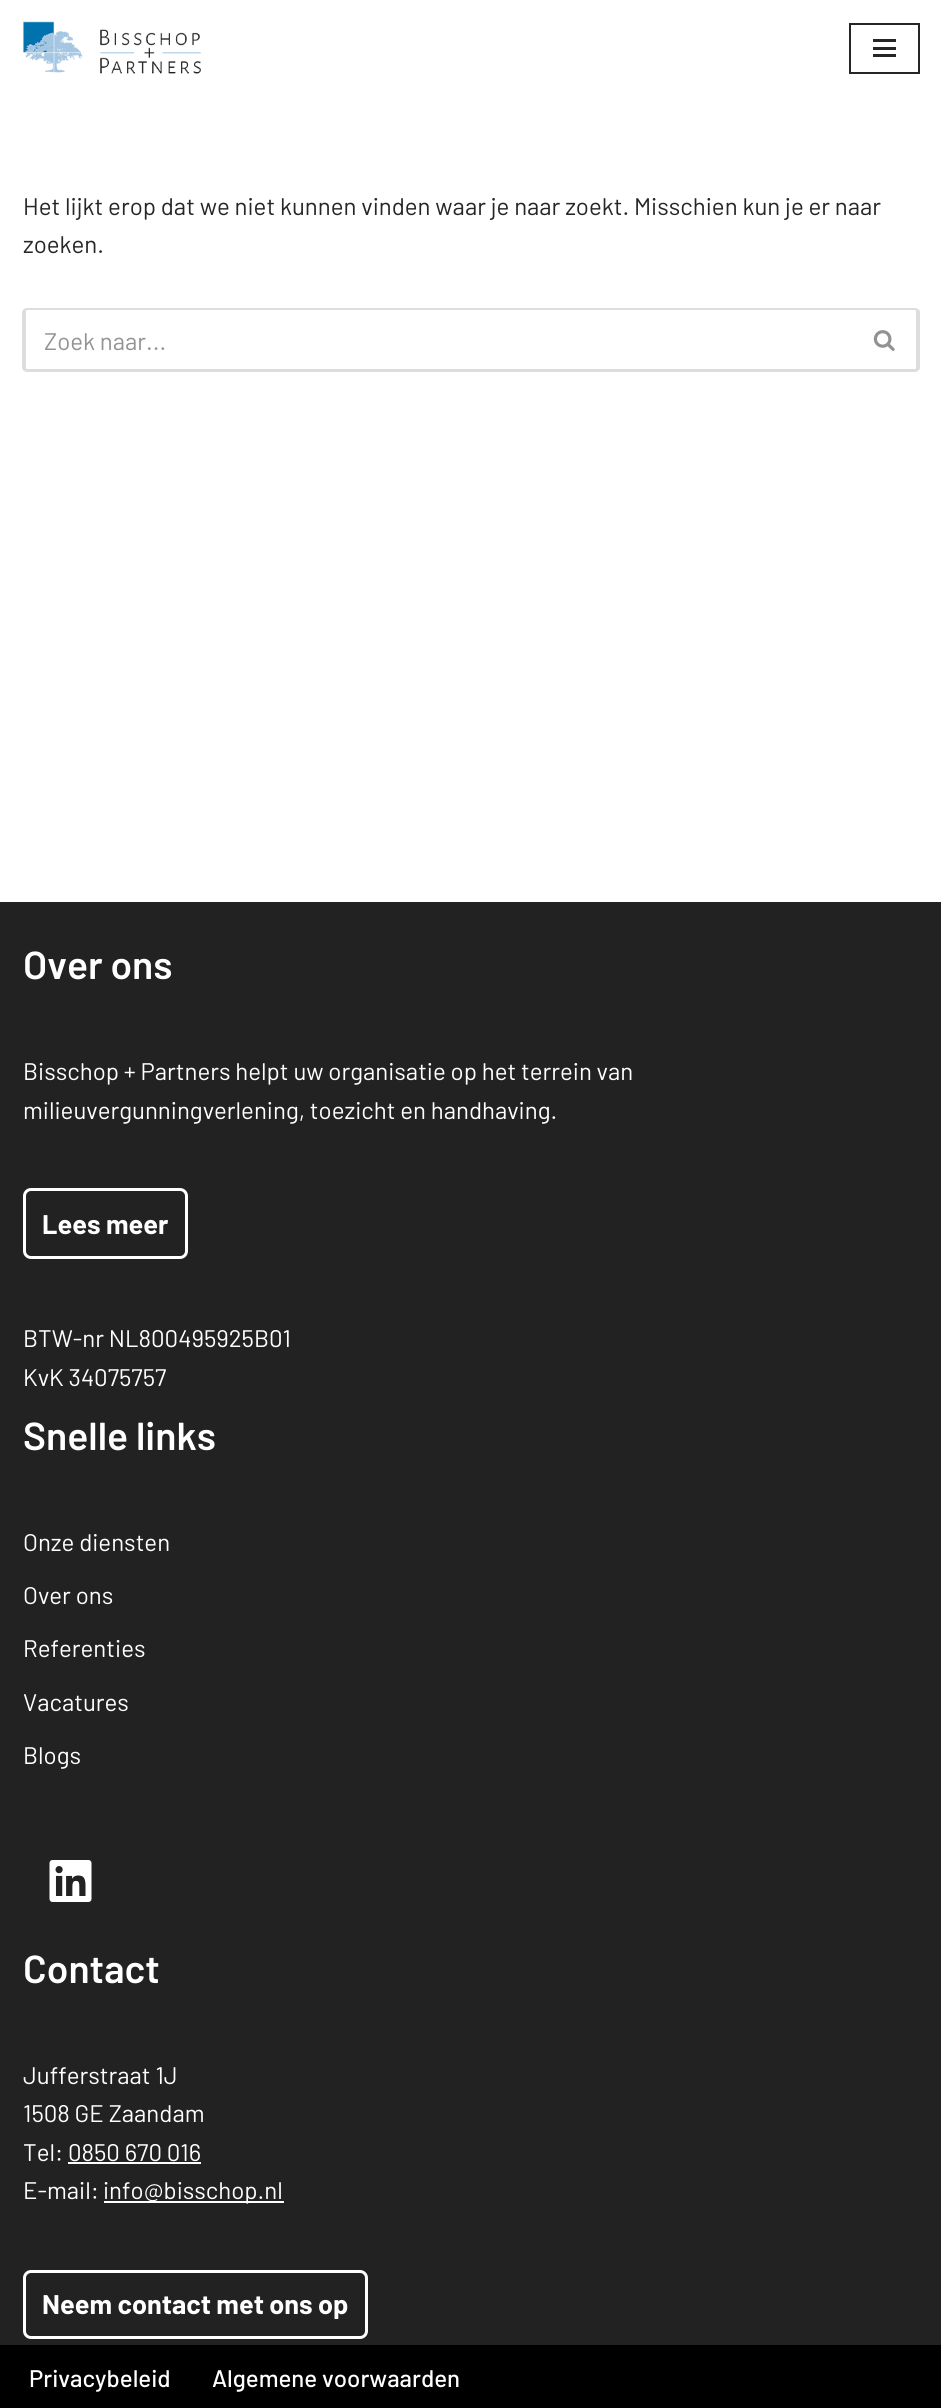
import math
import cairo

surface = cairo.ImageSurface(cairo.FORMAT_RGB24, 941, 2408)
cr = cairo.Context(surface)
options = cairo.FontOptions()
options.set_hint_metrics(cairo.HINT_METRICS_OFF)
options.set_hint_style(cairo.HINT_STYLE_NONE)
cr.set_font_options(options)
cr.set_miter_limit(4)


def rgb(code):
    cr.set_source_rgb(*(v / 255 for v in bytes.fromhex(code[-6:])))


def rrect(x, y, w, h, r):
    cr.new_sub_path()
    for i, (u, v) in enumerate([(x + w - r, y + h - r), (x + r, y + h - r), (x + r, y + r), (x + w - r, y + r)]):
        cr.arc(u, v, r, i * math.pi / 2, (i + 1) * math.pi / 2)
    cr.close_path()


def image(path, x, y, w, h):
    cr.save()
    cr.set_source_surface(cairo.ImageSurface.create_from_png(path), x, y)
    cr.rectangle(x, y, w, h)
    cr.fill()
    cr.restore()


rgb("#ffffff")
cr.paint()
image("img/1.png", 23, 21, 178, 53)
cr.rectangle(850, 24, 69, 49)
rgb("#272626")
cr.stroke()
for x, y, w, h, color in [
    (873, 39, 23, 3, "#272626"),
    (873, 47, 23, 3, "#272626"),
    (873, 54, 23, 3, "#272626"),
]:
    rgb(color)
    cr.rectangle(x, y, w, h)
    cr.fill()
rgb("#dddddd")
cr.set_fill_rule(cairo.FILL_RULE_EVEN_ODD)
cr.new_path()
cr.move_to(27, 308)
cr.line_to(852, 308)
cr.line_to(852, 372)
cr.line_to(27, 372)
cr.curve_to(25, 372, 22, 370, 22, 368)
cr.line_to(22, 312)
cr.curve_to(22, 310, 25, 308, 27, 308)
cr.close_path()
cr.move_to(27, 310)
cr.line_to(852, 310)
cr.line_to(852, 369)
cr.line_to(27, 369)
cr.curve_to(26, 369, 26, 368, 26, 368)
cr.line_to(26, 312)
cr.curve_to(26, 311, 26, 310, 27, 310)
cr.close_path()
cr.fill()
cr.new_path()
cr.move_to(852, 308)
cr.line_to(915, 308)
cr.curve_to(917, 308, 920, 310, 920, 312)
cr.line_to(920, 368)
cr.curve_to(920, 370, 917, 372, 915, 372)
cr.line_to(852, 372)
cr.close_path()
cr.move_to(852, 310)
cr.line_to(915, 310)
cr.curve_to(916, 310, 916, 311, 916, 312)
cr.line_to(916, 368)
cr.curve_to(916, 368, 916, 369, 915, 369)
cr.line_to(852, 369)
cr.close_path()
cr.fill()
image("img/2.png", 873, 330, 22, 21)
rgb("#222222")
cr.rectangle(0, 902, 941, 1443)
cr.fill()
rrect(24.5, 1189.5, 162, 68, 6.5)
rgb("#ffffff")
cr.set_line_width(3)
cr.stroke()
image("img/3.png", 49, 1860, 43, 42)
cr.rectangle(68, 2162, 133, 2)
cr.fill()
cr.rectangle(104, 2201, 180, 2)
cr.fill()
rrect(24.5, 2271.5, 342, 66, 6.5)
cr.stroke()
rgb("#000000")
cr.rectangle(0, 2345, 941, 63)
cr.fill()
cr.select_font_face("Barlow")
cr.set_font_size(24)
rgb("#272626")
cr.move_to(23, 215)
cr.show_text("Het lijkt erop dat we niet kunnen vinden waar je naar zoekt. Misschien kun je er naar")
cr.move_to(23, 253)
cr.show_text("zoeken.")
rgb("#939393")
cr.move_to(44, 350)
cr.show_text("Zoek naar...")
cr.select_font_face("Barlow SemiBold")
cr.set_font_size(39)
rgb("#ffffff")
cr.move_to(23, 979)
cr.show_text("Over ons")
cr.select_font_face("Barlow")
cr.set_font_size(24)
cr.move_to(23, 1080)
cr.show_text("Bisschop + Partners helpt uw organisatie op het terrein van")
cr.move_to(23, 1119)
cr.show_text("milieuvergunningverlening, toezicht en handhaving.")
cr.select_font_face("Barlow", cairo.FONT_SLANT_NORMAL, cairo.FONT_WEIGHT_BOLD)
cr.set_font_size(27)
cr.move_to(42, 1234)
cr.show_text("Lees meer")
cr.select_font_face("Barlow")
cr.set_font_size(24)
cr.move_to(23, 1347)
cr.show_text("BTW-nr NL800495925B01")
cr.move_to(23, 1386)
cr.show_text("KvK 34075757")
cr.select_font_face("Barlow SemiBold")
cr.set_font_size(39)
cr.move_to(23, 1450)
cr.show_text("Snelle links")
cr.select_font_face("Barlow")
cr.set_font_size(24)
for x, y, s in [
    (23, 1551, "Onze diensten"),
    (23, 1604, "Over ons"),
    (23, 1657, "Referenties"),
    (23, 1711, "Vacatures"),
    (23, 1764, "Blogs"),
]:
    cr.move_to(x, y)
    cr.show_text(s)
cr.select_font_face("Barlow SemiBold")
cr.set_font_size(39)
cr.move_to(23, 1983)
cr.show_text("Contact")
cr.select_font_face("Barlow")
cr.set_font_size(24)
for x, y, s in [
    (23, 2084, "Jufferstraat 1J"),
    (23, 2122, "1508 GE Zaandam"),
    (23, 2161, "Tel: 0850 670 016"),
    (23, 2199, "E-mail:"),
    (103, 2199, "info@bisschop.nl"),
]:
    cr.move_to(x, y)
    cr.show_text(s)
cr.select_font_face("Barlow", cairo.FONT_SLANT_NORMAL, cairo.FONT_WEIGHT_BOLD)
cr.set_font_size(27)
cr.move_to(42, 2314)
cr.show_text("Neem contact met ons op")
cr.select_font_face("Barlow Medium")
cr.set_font_size(24)
cr.move_to(29, 2387)
cr.show_text("Privacybeleid")
cr.move_to(212, 2387)
cr.show_text("Algemene voorwaarden")
surface.write_to_png("page.png")
